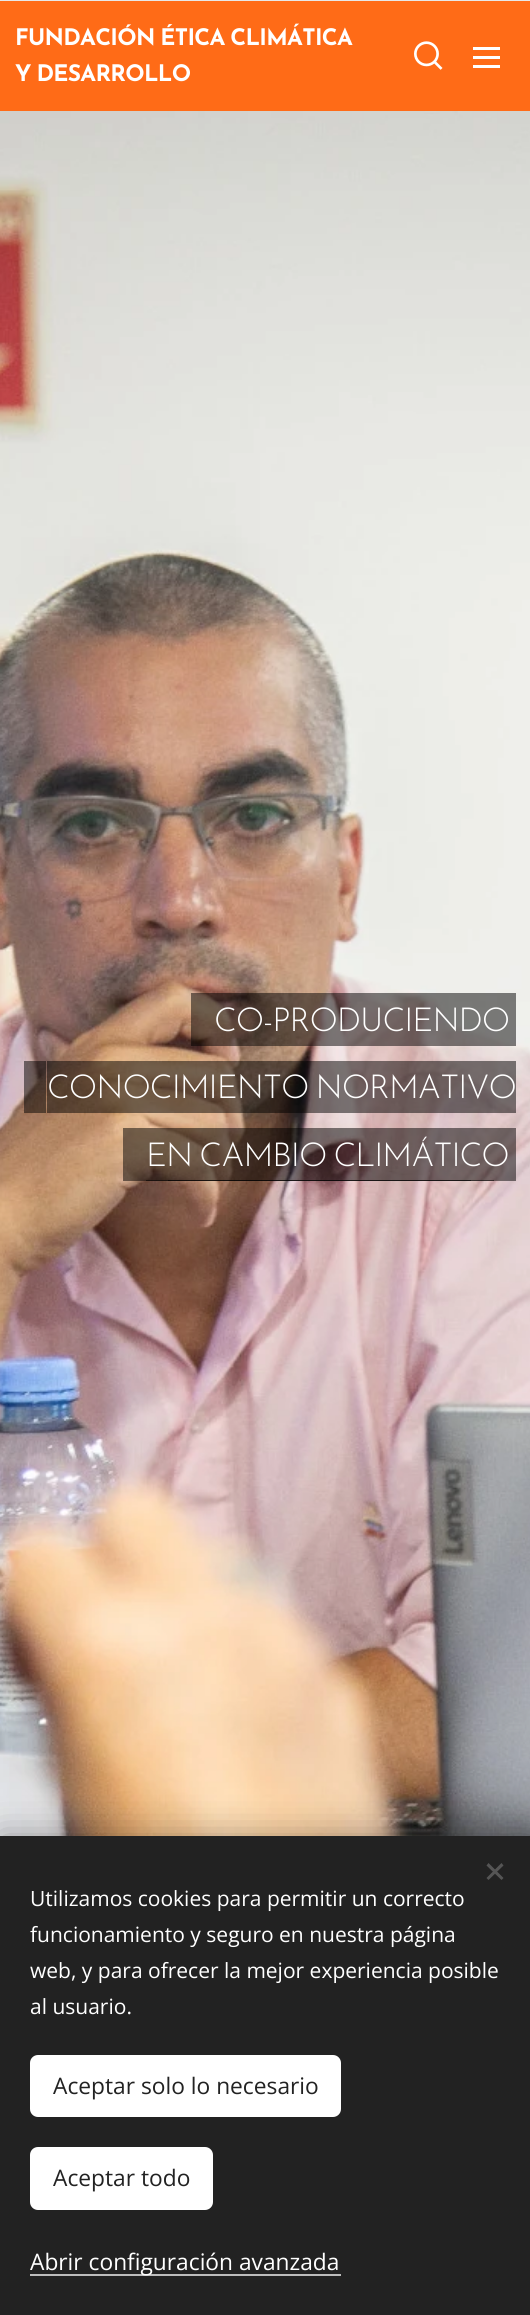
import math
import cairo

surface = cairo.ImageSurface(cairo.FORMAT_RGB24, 530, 2315)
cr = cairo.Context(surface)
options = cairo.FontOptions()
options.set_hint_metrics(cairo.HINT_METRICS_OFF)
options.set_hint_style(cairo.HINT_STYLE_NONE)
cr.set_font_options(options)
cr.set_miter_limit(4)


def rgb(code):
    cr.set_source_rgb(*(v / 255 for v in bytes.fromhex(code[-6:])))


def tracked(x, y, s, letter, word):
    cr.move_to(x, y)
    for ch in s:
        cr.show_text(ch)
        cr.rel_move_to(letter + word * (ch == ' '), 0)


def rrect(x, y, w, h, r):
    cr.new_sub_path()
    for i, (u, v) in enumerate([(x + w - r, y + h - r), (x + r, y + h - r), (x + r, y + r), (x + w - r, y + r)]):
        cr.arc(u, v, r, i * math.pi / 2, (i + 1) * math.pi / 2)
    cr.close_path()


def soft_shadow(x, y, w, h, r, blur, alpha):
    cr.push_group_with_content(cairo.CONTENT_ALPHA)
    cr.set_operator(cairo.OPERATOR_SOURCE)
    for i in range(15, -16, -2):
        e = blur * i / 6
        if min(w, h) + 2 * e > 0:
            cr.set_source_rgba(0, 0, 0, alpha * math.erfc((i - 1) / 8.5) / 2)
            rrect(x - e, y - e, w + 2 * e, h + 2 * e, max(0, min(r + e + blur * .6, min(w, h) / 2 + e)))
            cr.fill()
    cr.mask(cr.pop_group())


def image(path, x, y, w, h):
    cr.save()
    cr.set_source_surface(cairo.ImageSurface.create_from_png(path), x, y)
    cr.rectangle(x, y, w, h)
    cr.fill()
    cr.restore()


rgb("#ffffff")
cr.paint()
rgb("#ff6b17")
cr.rectangle(0, 1, 530, 110)
cr.fill()
rgb("#e8e8e8")
cr.rectangle(0, 0, 530, 1)
cr.fill()
image("img/1.png", 414, 41, 29, 29)
for x, y, w, h, color in [
    (473, 56, 27, 3, "#ffffff"),
    (473, 47, 27, 3, "#ffffff"),
    (473, 65, 27, 3, "#ffffff"),
]:
    rgb(color)
    cr.rectangle(x, y, w, h)
    cr.fill()
image("img/2.png", 0, 111, 530, 1725)
cr.set_source_rgba(0, 0, 0, 0.5)
cr.new_path()
cr.move_to(191, 993)
cr.line_to(191, 1046)
cr.line_to(471, 1046)
cr.line_to(213, 1046)
cr.line_to(213, 993)
cr.close_path()
cr.fill()
cr.new_path()
cr.move_to(236, 1046)
cr.line_to(516, 1046)
cr.line_to(516, 993)
cr.line_to(494, 993)
cr.line_to(494, 1046)
cr.close_path()
cr.fill()
cr.rectangle(213, 993, 281, 53)
cr.fill()
cr.rectangle(24, 1061, 22, 52)
cr.fill()
cr.rectangle(494, 1061, 22, 52)
cr.fill()
cr.rectangle(47, 1061, 447, 52)
cr.fill()
cr.new_path()
cr.move_to(123, 1128)
cr.line_to(123, 1181)
cr.line_to(471, 1181)
cr.line_to(471, 1180)
cr.line_to(146, 1180)
cr.line_to(146, 1128)
cr.close_path()
cr.fill()
cr.new_path()
cr.move_to(168, 1180)
cr.line_to(168, 1181)
cr.line_to(516, 1181)
cr.line_to(516, 1128)
cr.line_to(494, 1128)
cr.line_to(494, 1180)
cr.close_path()
cr.fill()
cr.rectangle(146, 1128, 348, 53)
cr.fill()
rgb("#000000")
soft_shadow(0, 1836, 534, 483, 0, 19, 0.33)
rgb("#222222")
cr.rectangle(0, 1836, 530, 479)
cr.fill()
rgb("#555555")
cr.new_path()
cr.move_to(486.5, 1878)
cr.line_to(501.5, 1863)
cr.line_to(503.5, 1865.5)
cr.line_to(488.5, 1880)
cr.close_path()
cr.fill()
cr.new_path()
cr.move_to(488.5, 1863)
cr.line_to(503.5, 1878)
cr.line_to(501.5, 1880)
cr.line_to(486.5, 1865.5)
cr.close_path()
cr.fill()
rgb("#ffffff")
rrect(30, 2055, 311, 62, 8)
cr.fill()
rrect(30, 2147, 183, 63, 8)
cr.fill()
rgb("#bdbdbd")
cr.rectangle(30, 2274, 311, 2)
cr.fill()
cr.select_font_face("Josefin Sans", cairo.FONT_SLANT_NORMAL, cairo.FONT_WEIGHT_BOLD)
cr.set_font_size(22.75)
rgb("#ffffff")
tracked(15, 45, "FUNDACIÓN ÉTICA CLIMÁTICA", -0.7, -1)
tracked(15, 81, "Y DESARROLLO", -0.7, -1)
cr.select_font_face("Josefin Sans Light")
cr.set_font_size(33)
tracked(214, 1031, "CO-PRODUCIENDO", -1, 0)
tracked(47, 1098, "CONOCIMIENTO NORMATIVO", -1, -2)
tracked(146, 1166, "EN CAMBIO CLIMÁTICO", -1, -2)
cr.select_font_face("Open Sans")
cr.set_font_size(21)
for x, y, s in [
    (30, 1906, "Utilizamos cookies para permitir un correcto"),
    (30, 1942, "funcionamiento y seguro en nuestra página"),
    (30, 1978, "web, y para ofrecer la mejor experiencia posible"),
    (30, 2014, "al usuario."),
]:
    cr.move_to(x, y)
    cr.show_text(s)
cr.set_font_size(22.75)
rgb("#222222")
cr.move_to(53, 2094)
cr.show_text("Aceptar solo lo necesario")
cr.move_to(53, 2186)
cr.show_text("Aceptar todo")
rgb("#ffffff")
cr.move_to(30, 2270)
cr.show_text("Abrir configuración avanzada")
surface.write_to_png("page.png")
